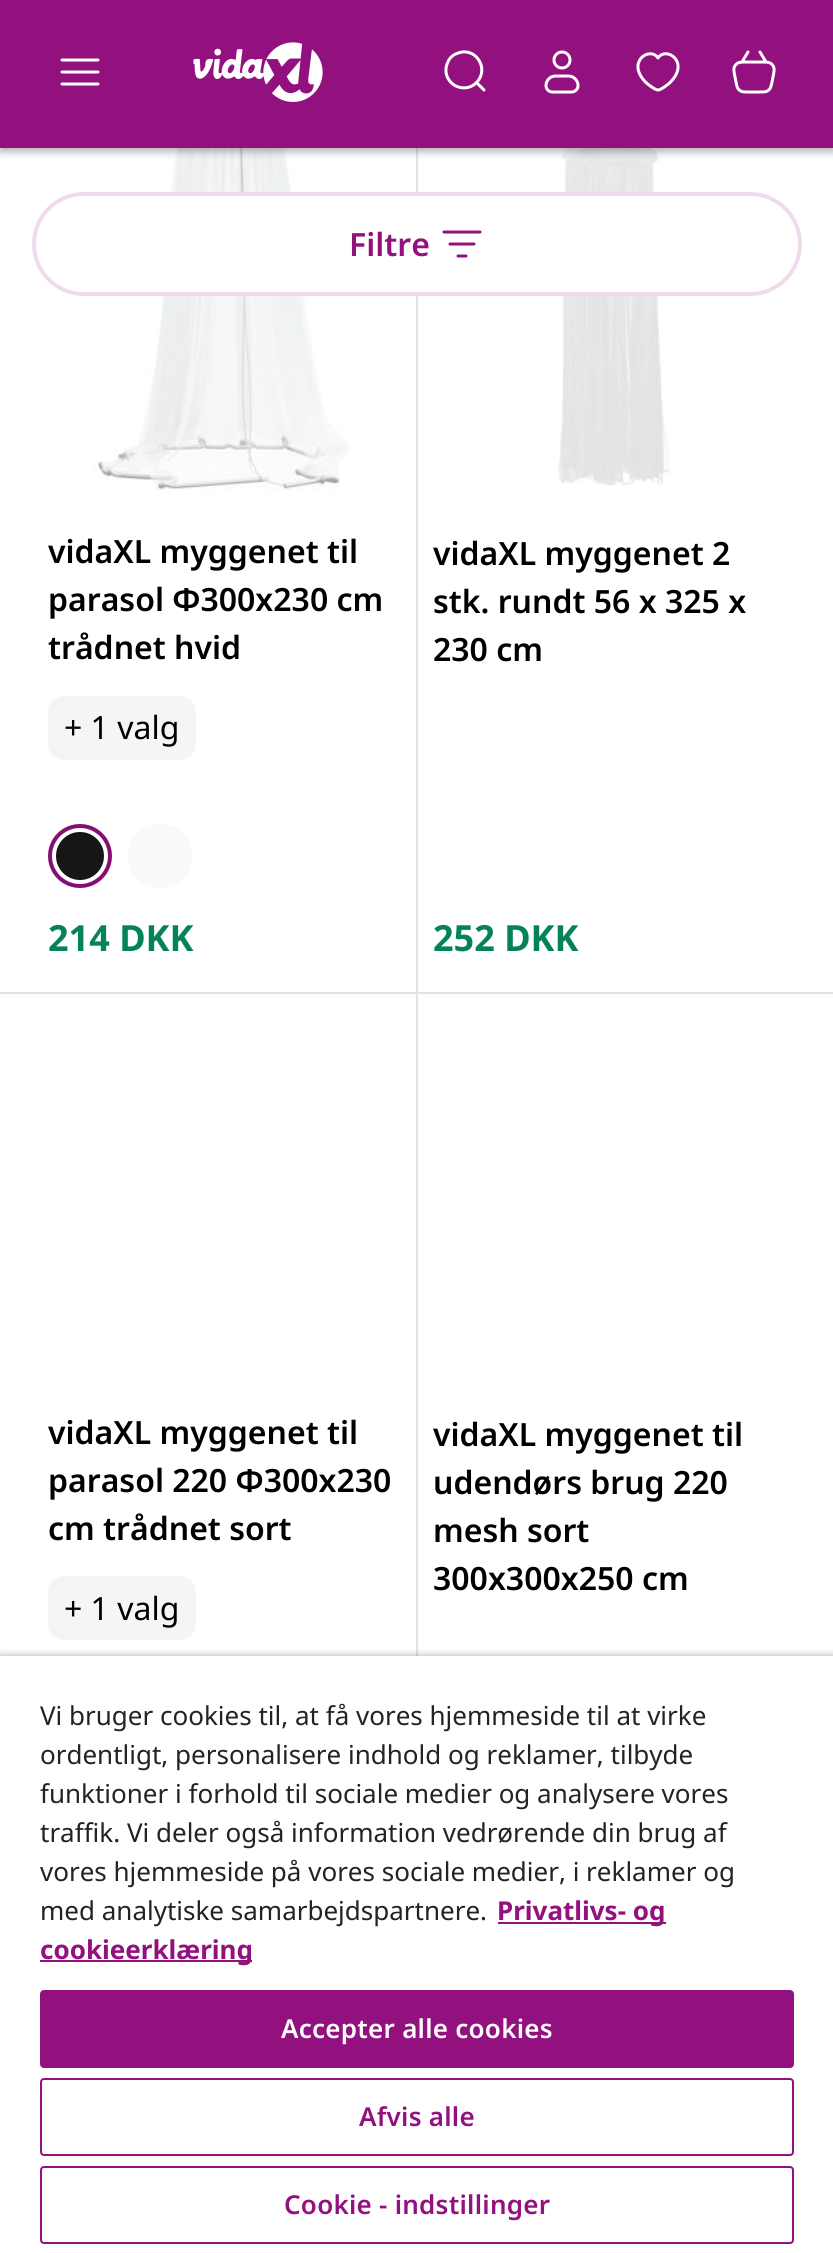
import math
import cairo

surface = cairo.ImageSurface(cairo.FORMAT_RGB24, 833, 2253)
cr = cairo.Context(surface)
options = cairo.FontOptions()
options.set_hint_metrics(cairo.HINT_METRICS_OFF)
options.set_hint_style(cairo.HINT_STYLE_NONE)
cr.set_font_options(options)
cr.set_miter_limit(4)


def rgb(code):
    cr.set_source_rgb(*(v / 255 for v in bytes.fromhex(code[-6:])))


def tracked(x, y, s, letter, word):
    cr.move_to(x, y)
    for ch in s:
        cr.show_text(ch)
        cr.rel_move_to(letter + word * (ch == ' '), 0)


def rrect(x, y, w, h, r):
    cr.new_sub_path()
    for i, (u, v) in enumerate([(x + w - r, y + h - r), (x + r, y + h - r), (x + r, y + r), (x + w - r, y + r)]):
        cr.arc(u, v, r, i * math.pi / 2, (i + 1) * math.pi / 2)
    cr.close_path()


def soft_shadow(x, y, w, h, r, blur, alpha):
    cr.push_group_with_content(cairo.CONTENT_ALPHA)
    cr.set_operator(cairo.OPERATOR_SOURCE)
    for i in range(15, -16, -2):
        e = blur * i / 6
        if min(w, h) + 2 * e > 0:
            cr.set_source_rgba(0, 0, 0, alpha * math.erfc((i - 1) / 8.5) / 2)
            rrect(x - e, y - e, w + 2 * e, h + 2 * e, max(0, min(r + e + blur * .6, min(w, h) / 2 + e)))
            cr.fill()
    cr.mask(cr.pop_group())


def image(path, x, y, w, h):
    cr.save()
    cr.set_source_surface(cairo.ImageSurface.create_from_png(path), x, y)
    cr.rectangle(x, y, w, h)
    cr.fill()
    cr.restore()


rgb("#ffffff")
cr.paint()
rgb("#e3e3e3")
cr.rectangle(416, 148, 2, 844)
cr.fill()
image("img/4.png", 93, 148, 256, 343)
image("img/5.png", 558, 148, 111, 338)
rgb("#232323")
soft_shadow(0, 4, 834, 148, 0, 4, 0.35)
rgb("#93117e")
cr.rectangle(0, 0, 833, 148)
cr.fill()
cr.new_path()
cr.move_to(62, 60)
cr.line_to(98, 60)
cr.move_to(62, 72)
cr.line_to(98, 72)
cr.move_to(62, 84)
cr.line_to(98, 84)
rgb("#ffffff")
cr.set_line_width(3)
cr.set_line_cap(cairo.LINE_CAP_ROUND)
cr.stroke()
image("img/1.png", 193, 42, 130, 60)
cr.new_path()
cr.move_to(484, 90)
cr.line_to(476.5, 82.5)
cr.move_to(476.5, 82.5)
cr.curve_to(490, 69, 475.5, 45.5, 457, 53.5)
cr.curve_to(452.5, 55, 449, 58.5, 447.5, 63)
cr.curve_to(445, 68.5, 445.5, 75, 449, 80)
cr.curve_to(455.5, 89.5, 469, 90.5, 476.5, 82.5)
cr.close_path()
cr.stroke()
image("img/2.png", 544, 50, 36, 44)
cr.new_path()
cr.move_to(658, 90)
cr.curve_to(661, 90, 667, 85, 669, 83.5)
cr.curve_to(691.5, 62.5, 666, 45.5, 658, 58)
cr.curve_to(650, 45.5, 624.5, 62.5, 647, 83.5)
cr.curve_to(649, 85, 655, 90, 658, 90)
cr.close_path()
cr.set_line_join(cairo.LINE_JOIN_ROUND)
cr.stroke()
image("img/3.png", 732, 50, 44, 44)
rrect(34, 194, 766, 100, 50)
cr.fill_preserve()
rgb("#efdbec")
cr.set_line_width(4)
cr.set_line_cap(cairo.LINE_CAP_BUTT)
cr.set_line_join(cairo.LINE_JOIN_MITER)
cr.stroke()
cr.new_path()
cr.move_to(444, 232)
cr.line_to(480, 232)
cr.move_to(450, 244)
cr.line_to(474, 244)
cr.move_to(458, 256)
cr.line_to(466, 256)
rgb("#93117e")
cr.set_line_width(3)
cr.set_line_cap(cairo.LINE_CAP_ROUND)
cr.stroke()
rgb("#f5f5f5")
rrect(48, 696, 148, 64, 16)
cr.fill()
rgb("#161616")
cr.arc(80, 856, 28, 0, 2 * math.pi)
cr.fill_preserve()
rgb("#ffffff")
cr.set_line_width(8)
cr.set_line_cap(cairo.LINE_CAP_BUTT)
cr.stroke()
cr.arc(80, 856, 30, 0, 2 * math.pi)
rgb("#860f73")
cr.set_line_width(4)
cr.stroke()
rgb("#f8fafa")
cr.arc(160, 856, 32, 0, 2 * math.pi)
cr.fill()
rgb("#e3e3e3")
cr.rectangle(0, 992, 833, 2)
cr.fill()
cr.rectangle(416, 992, 2, 664)
cr.fill()
rgb("#f5f5f5")
rrect(48, 1576, 148, 64, 16)
cr.fill()
rgb("#000000")
soft_shadow(0, 1656, 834, 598, 0, 4, 0.35)
for x, y, w, h, color in [
    (0, 1656, 833, 597, "#ffffff"),
    (498, 1922, 168, 2, "#93117e"),
    (40, 1960, 212, 2, "#93117e"),
]:
    rgb(color)
    cr.rectangle(x, y, w, h)
    cr.fill()
rrect(41, 1991, 752, 76, 3)
cr.fill_preserve()
cr.set_line_width(2)
cr.stroke()
rrect(41, 2079, 752, 76, 3)
cr.stroke()
rrect(41, 2167, 752, 76, 3)
cr.stroke()
cr.select_font_face("Noto Sans SemiBold")
cr.set_font_size(32)
cr.move_to(349, 256)
cr.show_text("Filtre")
rgb("#000000")
for x, y, s in [
    (48, 563, "vidaXL myggenet til"),
    (48, 611, "parasol Φ300x230 cm"),
    (48, 659, "trådnet hvid"),
]:
    cr.move_to(x, y)
    cr.show_text(s)
cr.select_font_face("Noto Sans")
cr.move_to(64, 739)
cr.show_text("+ 1 valg")
cr.select_font_face("Noto Sans", cairo.FONT_SLANT_NORMAL, cairo.FONT_WEIGHT_BOLD)
cr.set_font_size(36)
rgb("#048259")
cr.move_to(48, 951)
cr.show_text("214 DKK")
cr.select_font_face("Noto Sans SemiBold")
cr.set_font_size(32)
rgb("#000000")
for x, y, s in [
    (433, 565, "vidaXL myggenet 2"),
    (433, 613, "stk. rundt 56 x 325 x"),
    (433, 661, "230 cm"),
]:
    cr.move_to(x, y)
    cr.show_text(s)
cr.select_font_face("Noto Sans", cairo.FONT_SLANT_NORMAL, cairo.FONT_WEIGHT_BOLD)
cr.set_font_size(36)
rgb("#048259")
cr.move_to(433, 951)
cr.show_text("252 DKK")
cr.select_font_face("Noto Sans SemiBold")
cr.set_font_size(32)
rgb("#000000")
for x, y, s in [
    (48, 1444, "vidaXL myggenet til"),
    (48, 1492, "parasol 220 Φ300x230"),
    (48, 1540, "cm trådnet sort"),
]:
    cr.move_to(x, y)
    cr.show_text(s)
cr.select_font_face("Noto Sans")
cr.move_to(64, 1620)
cr.show_text("+ 1 valg")
cr.select_font_face("Noto Sans SemiBold")
for x, y, s in [
    (433, 1446, "vidaXL myggenet til"),
    (433, 1494, "udendørs brug 220"),
    (433, 1542, "mesh sort"),
    (433, 1590, "300x300x250 cm"),
]:
    cr.move_to(x, y)
    cr.show_text(s)
cr.select_font_face("Noto Sans")
cr.set_font_size(26)
rgb("#232323")
for x, y, s in [
    (40, 1725, "Vi bruger cookies til, at få vores hjemmeside til at virke"),
    (40, 1764, "ordentligt, personalisere indhold og reklamer, tilbyde"),
    (40, 1803, "funktioner i forhold til sociale medier og analysere vores"),
    (40, 1842, "traffik. Vi deler også information vedrørende din brug af"),
    (40, 1881, "vores hjemmeside på vores sociale medier, i reklamer og"),
    (40, 1920, "med analytiske samarbejdspartnere."),
]:
    cr.move_to(x, y)
    cr.show_text(s)
cr.select_font_face("Noto Sans", cairo.FONT_SLANT_NORMAL, cairo.FONT_WEIGHT_BOLD)
rgb("#93117e")
cr.move_to(497, 1920)
cr.show_text("Privatlivs- og")
cr.move_to(40, 1959)
cr.show_text("cookieerklæring")
cr.select_font_face("Noto Sans SemiBold")
rgb("#ffffff")
tracked(281, 2038, "Accepter alle cookies", 0.25, 0)
rgb("#93117e")
tracked(359, 2126, "Afvis alle", 0.25, 0)
tracked(284, 2214, "Cookie - indstillinger", 0.25, 0)
surface.write_to_png("page.png")
